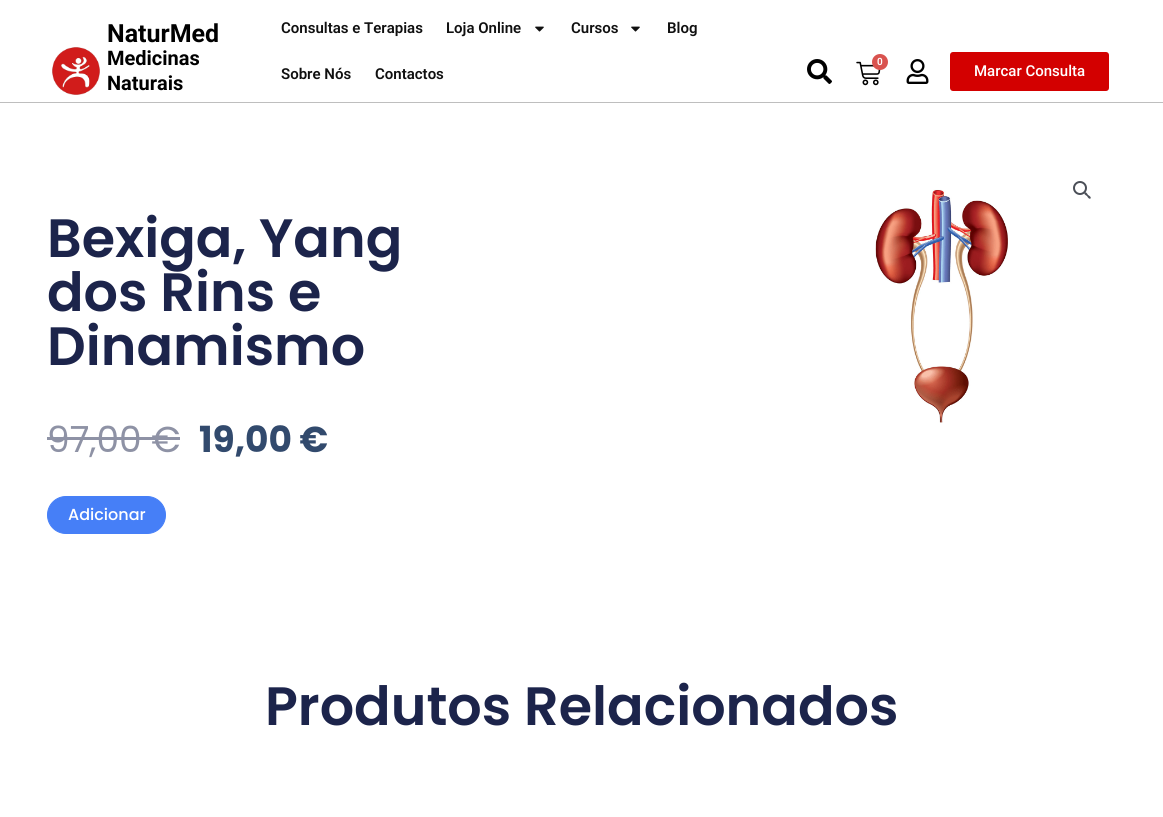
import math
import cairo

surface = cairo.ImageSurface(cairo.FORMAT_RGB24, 1163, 817)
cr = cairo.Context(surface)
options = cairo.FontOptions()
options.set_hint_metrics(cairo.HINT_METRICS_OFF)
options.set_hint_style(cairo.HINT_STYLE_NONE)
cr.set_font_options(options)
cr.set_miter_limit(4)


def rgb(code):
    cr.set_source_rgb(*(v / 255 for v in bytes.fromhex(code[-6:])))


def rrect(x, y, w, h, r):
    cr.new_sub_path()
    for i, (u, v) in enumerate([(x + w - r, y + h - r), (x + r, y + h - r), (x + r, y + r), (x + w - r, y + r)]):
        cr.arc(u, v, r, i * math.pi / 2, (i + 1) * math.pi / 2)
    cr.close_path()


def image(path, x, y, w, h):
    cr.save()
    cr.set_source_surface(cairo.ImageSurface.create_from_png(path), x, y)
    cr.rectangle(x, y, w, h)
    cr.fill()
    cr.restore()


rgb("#ffffff")
cr.paint()
rgb("#bebebe")
cr.rectangle(0, 102, 1163, 1)
cr.fill()
image("img/1.png", 52, 47, 48, 48)
image("img/2.png", 535, 26, 9, 6)
image("img/2.png", 631, 26, 9, 6)
image("img/3.png", 807, 59, 25, 25)
image("img/4.png", 856, 61, 25, 25)
rgb("#d9534f")
cr.arc(880, 62, 8, 0, 2 * math.pi)
cr.fill()
image("img/5.png", 906, 59, 23, 25)
rgb("#d30000")
rrect(950, 52, 159, 39, 3)
cr.fill()
rgb("#8e92a5")
cr.rectangle(47, 437, 133, 3)
cr.fill()
rgb("#467ff7")
rrect(47.5, 496.5, 118, 37, 18.5)
cr.fill_preserve()
cr.set_line_width(1)
cr.stroke()
image("img/6.png", 875, 189, 133, 234)
cr.arc(1080, 188, 6, 0, 2 * math.pi)
rgb("#4b4f58")
cr.set_line_width(2)
cr.stroke()
cr.new_path()
cr.move_to(1084.5, 192.5)
cr.curve_to(1086, 191.5, 1087.5, 194, 1088, 195)
cr.curve_to(1089, 195.5, 1091.5, 197, 1090.5, 198.5)
cr.curve_to(1089, 199.5, 1087.5, 197, 1087, 196)
cr.curve_to(1086, 195.5, 1083.5, 194, 1084.5, 192.5)
cr.close_path()
cr.fill()
cr.select_font_face("Roboto", cairo.FONT_SLANT_NORMAL, cairo.FONT_WEIGHT_BOLD)
cr.set_font_size(25)
rgb("#000000")
cr.move_to(107, 42)
cr.show_text("NaturMed")
cr.set_font_size(20)
cr.move_to(107, 65)
cr.show_text("Medicinas")
cr.move_to(107, 90)
cr.show_text("Naturais")
cr.select_font_face("Roboto SemiBold")
cr.set_font_size(15)
rgb("#101010")
for x, y, s in [
    (281, 33, "Consultas e Terapias"),
    (446, 33, "Loja Online"),
    (571, 33, "Cursos"),
    (667, 33, "Blog"),
    (281, 79, "Sobre Nós"),
    (375, 79, "Contactos"),
]:
    cr.move_to(x, y)
    cr.show_text(s)
cr.set_font_size(10)
rgb("#ffffff")
cr.move_to(877, 65)
cr.show_text("0")
cr.select_font_face("Roboto Medium")
cr.set_font_size(15)
cr.move_to(974, 76)
cr.show_text("Marcar Consulta")
cr.select_font_face("Poppins SemiBold")
cr.set_font_size(54)
rgb("#1c244b")
for x, y, s in [
    (47, 257, "Bexiga, Yang"),
    (47, 311, "dos Rins e"),
    (47, 365, "Dinamismo"),
]:
    cr.move_to(x, y)
    cr.show_text(s)
cr.select_font_face("Poppins")
cr.set_font_size(36)
rgb("#8e92a5")
cr.move_to(47, 452)
cr.show_text("97,00 €")
cr.select_font_face("Poppins", cairo.FONT_SLANT_NORMAL, cairo.FONT_WEIGHT_BOLD)
rgb("#324a6d")
cr.move_to(199, 452)
cr.show_text("19,00 €")
cr.select_font_face("Poppins Medium")
cr.set_font_size(16)
rgb("#ffffff")
cr.move_to(68, 520)
cr.show_text("Adicionar")
cr.select_font_face("Poppins SemiBold")
cr.set_font_size(54)
rgb("#1c244b")
cr.move_to(265, 725)
cr.show_text("Produtos Relacionados")
surface.write_to_png("page.png")
